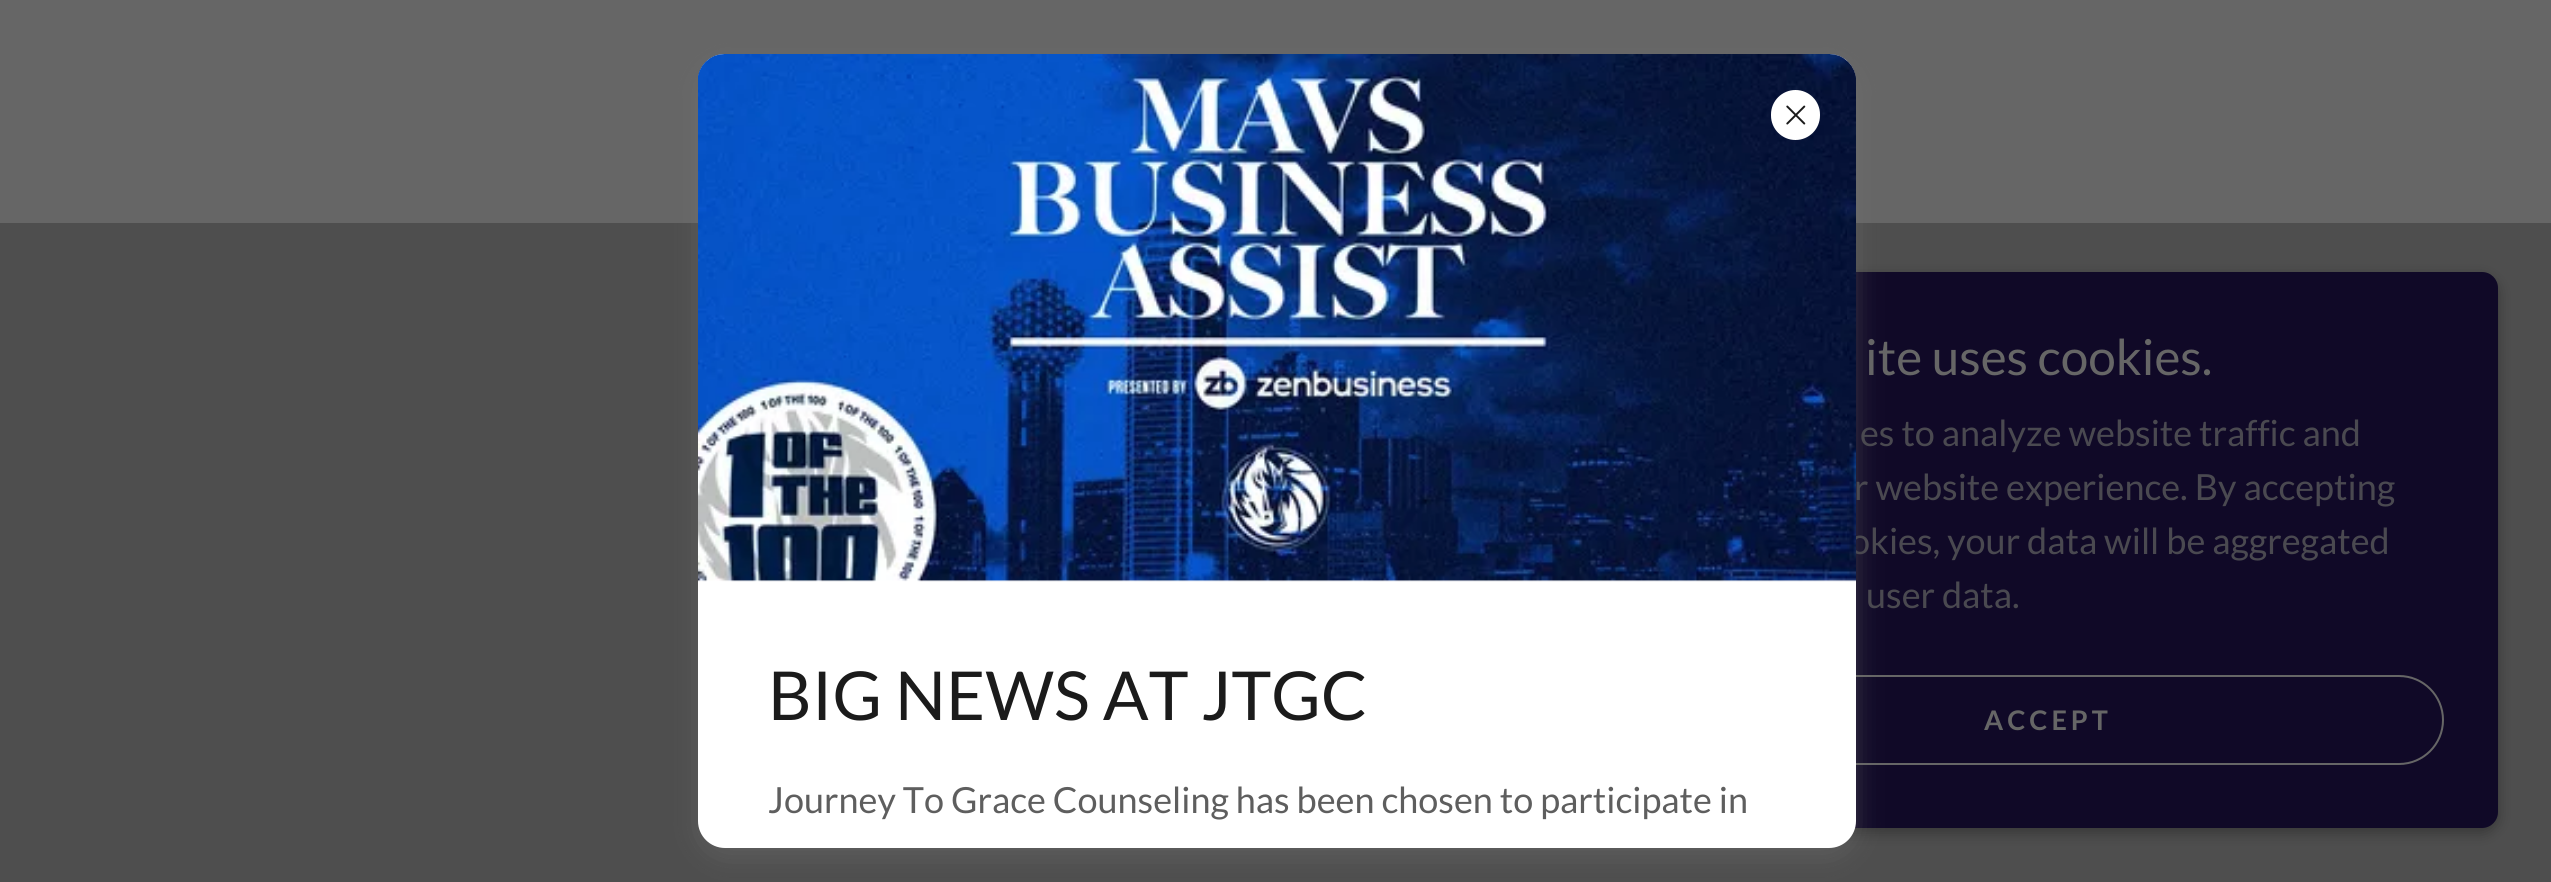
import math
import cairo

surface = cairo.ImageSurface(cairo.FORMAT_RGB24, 2551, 882)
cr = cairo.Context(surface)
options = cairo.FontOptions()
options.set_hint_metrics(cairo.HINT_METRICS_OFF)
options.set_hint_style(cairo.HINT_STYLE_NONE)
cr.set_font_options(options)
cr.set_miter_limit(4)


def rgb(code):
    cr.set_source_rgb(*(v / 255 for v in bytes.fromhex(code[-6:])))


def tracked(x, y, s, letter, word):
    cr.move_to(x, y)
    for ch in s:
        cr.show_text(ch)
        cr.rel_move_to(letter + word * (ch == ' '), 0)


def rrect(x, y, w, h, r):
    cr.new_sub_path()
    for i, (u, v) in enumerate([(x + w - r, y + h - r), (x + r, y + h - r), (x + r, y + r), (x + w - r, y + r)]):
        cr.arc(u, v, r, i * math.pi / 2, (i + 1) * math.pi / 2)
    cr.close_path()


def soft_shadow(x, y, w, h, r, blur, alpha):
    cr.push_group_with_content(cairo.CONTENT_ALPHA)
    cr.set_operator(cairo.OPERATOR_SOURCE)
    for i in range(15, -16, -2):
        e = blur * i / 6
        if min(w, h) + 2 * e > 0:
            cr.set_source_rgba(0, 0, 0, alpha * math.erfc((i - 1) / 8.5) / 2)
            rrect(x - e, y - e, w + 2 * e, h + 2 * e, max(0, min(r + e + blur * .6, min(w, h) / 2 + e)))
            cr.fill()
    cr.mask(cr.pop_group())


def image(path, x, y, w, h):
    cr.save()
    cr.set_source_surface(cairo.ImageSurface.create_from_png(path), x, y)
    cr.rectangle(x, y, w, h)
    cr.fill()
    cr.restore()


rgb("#666666")
cr.paint()
rgb("#4e4e4e")
cr.rectangle(0, 223, 2551, 659)
cr.fill()
rgb("#000000")
soft_shadow(1598, 277, 900, 556, 16, 7, 0.3)
rgb("#100927")
rrect(1598, 272, 900, 556, 16)
cr.fill()
rrect(1653, 676, 790, 88, 44)
rgb("#666666")
cr.stroke()
rgb("#757575")
soft_shadow(698, 63, 1158, 794, 27, 13.5, 0.4)
cr.select_font_face("Lato")
cr.set_font_size(49.5)
rgb("#666666")
cr.move_to(1865, 375)
cr.show_text("ite uses cookies.")
cr.set_font_size(36)
rgb("#4a4950")
for x, y, s in [
    (1860, 446, "es to analyze website traffic and"),
    (1854, 500, "r website experience. By accepting"),
    (1850, 554, "okies, your data will be aggregated"),
]:
    cr.move_to(x, y)
    cr.show_text(s)
rgb("#ffffff")
rrect(698, 54, 1158, 794, 27)
cr.fill()
image("img/2.png", 698, 54, 1158, 528)
rrect(1771, 90, 49, 50, 24.5)
cr.fill()
image("img/1.png", 1786, 105, 20, 20)
rgb("#5e5e5e")
cr.move_to(768, 813)
cr.show_text("Journey To Grace Counseling has been chosen to participate in")
cr.set_font_size(67.5)
rgb("#1b1b1b")
cr.move_to(768, 720)
cr.show_text("BIG NEWS AT JTGC")
cr.set_font_size(36)
rgb("#4a4950")
cr.move_to(1866, 608)
cr.show_text("user data.")
cr.select_font_face("Lato", cairo.FONT_SLANT_NORMAL, cairo.FONT_WEIGHT_BOLD)
cr.set_font_size(27)
rgb("#666666")
tracked(1984, 730, "ACCEPT", 4, 0)
surface.write_to_png("page.png")
